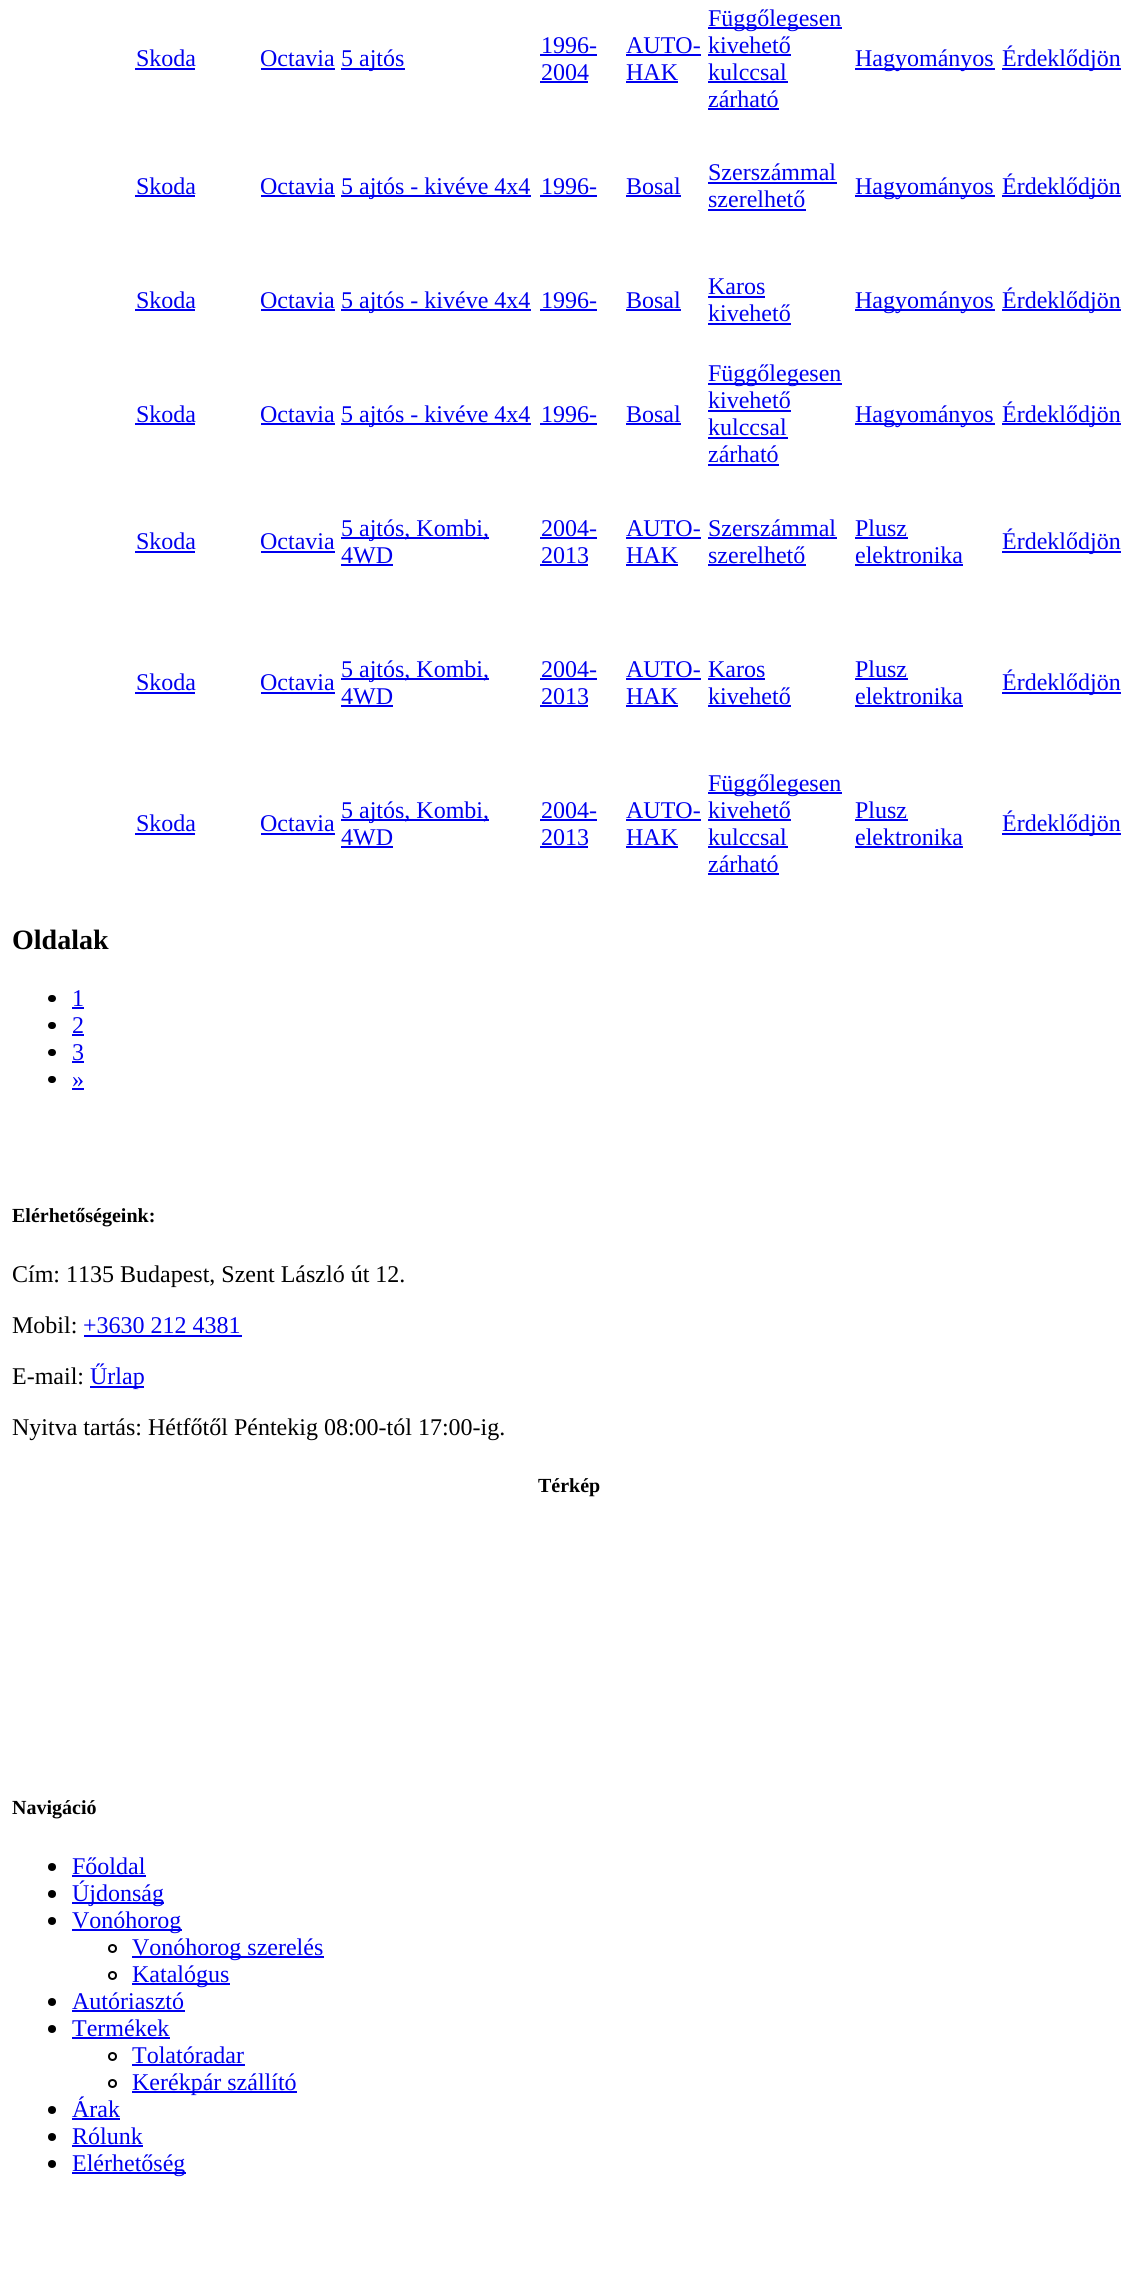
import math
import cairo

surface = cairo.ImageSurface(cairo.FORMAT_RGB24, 1136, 2295)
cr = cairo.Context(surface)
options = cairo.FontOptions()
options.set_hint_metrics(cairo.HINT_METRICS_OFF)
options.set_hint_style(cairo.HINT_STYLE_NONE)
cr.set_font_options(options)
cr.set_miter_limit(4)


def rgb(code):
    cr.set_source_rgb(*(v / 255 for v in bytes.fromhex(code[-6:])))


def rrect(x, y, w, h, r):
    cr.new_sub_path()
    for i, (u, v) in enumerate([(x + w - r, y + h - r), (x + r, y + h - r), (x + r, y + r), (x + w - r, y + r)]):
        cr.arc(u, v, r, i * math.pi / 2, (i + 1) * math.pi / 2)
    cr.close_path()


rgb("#ffffff")
cr.paint()
for x, y, w, h, color in [
    (135, 68, 60, 2, "#0000ee"),
    (261, 68, 74, 2, "#0000ee"),
    (341, 68, 64, 2, "#0000ee"),
    (540, 54, 57, 2, "#0000ee"),
    (540, 81, 48, 2, "#0000ee"),
    (626, 54, 75, 2, "#0000ee"),
    (626, 81, 52, 2, "#0000ee"),
    (708, 27, 134, 2, "#0000ee"),
    (708, 54, 83, 2, "#0000ee"),
    (708, 81, 80, 2, "#0000ee"),
    (708, 108, 71, 2, "#0000ee"),
    (855, 68, 140, 2, "#0000ee"),
    (1002, 68, 119, 2, "#0000ee"),
    (135, 195, 60, 2, "#0000ee"),
    (261, 195, 74, 2, "#0000ee"),
    (341, 195, 190, 2, "#0000ee"),
    (540, 195, 57, 2, "#0000ee"),
    (626, 195, 55, 2, "#0000ee"),
    (708, 182, 129, 2, "#0000ee"),
    (708, 209, 98, 2, "#0000ee"),
    (855, 195, 140, 2, "#0000ee"),
    (1002, 195, 119, 2, "#0000ee"),
    (135, 309, 60, 2, "#0000ee"),
    (261, 309, 74, 2, "#0000ee"),
    (341, 309, 190, 2, "#0000ee"),
    (540, 309, 57, 2, "#0000ee"),
    (626, 309, 55, 2, "#0000ee"),
    (708, 296, 57, 2, "#0000ee"),
    (708, 323, 83, 2, "#0000ee"),
    (855, 309, 140, 2, "#0000ee"),
    (1002, 309, 119, 2, "#0000ee"),
    (135, 423, 60, 2, "#0000ee"),
    (261, 423, 74, 2, "#0000ee"),
    (341, 423, 190, 2, "#0000ee"),
    (540, 423, 57, 2, "#0000ee"),
    (626, 423, 55, 2, "#0000ee"),
    (708, 383, 134, 2, "#0000ee"),
    (708, 410, 83, 2, "#0000ee"),
    (708, 437, 80, 2, "#0000ee"),
    (708, 464, 71, 2, "#0000ee"),
    (855, 423, 140, 2, "#0000ee"),
    (1002, 423, 119, 2, "#0000ee"),
    (135, 551, 60, 2, "#0000ee"),
    (261, 551, 74, 2, "#0000ee"),
    (341, 537, 148, 2, "#0000ee"),
    (341, 564, 52, 2, "#0000ee"),
    (540, 537, 57, 2, "#0000ee"),
    (540, 564, 48, 2, "#0000ee"),
    (626, 537, 75, 2, "#0000ee"),
    (626, 564, 52, 2, "#0000ee"),
    (708, 537, 129, 2, "#0000ee"),
    (708, 564, 98, 2, "#0000ee"),
    (855, 537, 53, 2, "#0000ee"),
    (855, 564, 108, 2, "#0000ee"),
    (1002, 551, 119, 2, "#0000ee"),
    (135, 692, 60, 2, "#0000ee"),
    (261, 692, 74, 2, "#0000ee"),
    (341, 678, 148, 2, "#0000ee"),
    (341, 705, 52, 2, "#0000ee"),
    (540, 678, 57, 2, "#0000ee"),
    (540, 705, 48, 2, "#0000ee"),
    (626, 678, 75, 2, "#0000ee"),
    (626, 705, 52, 2, "#0000ee"),
    (708, 678, 57, 2, "#0000ee"),
    (708, 705, 83, 2, "#0000ee"),
    (855, 678, 53, 2, "#0000ee"),
    (855, 705, 108, 2, "#0000ee"),
    (1002, 692, 119, 2, "#0000ee"),
    (135, 833, 60, 2, "#0000ee"),
    (261, 833, 74, 2, "#0000ee"),
    (341, 819, 148, 2, "#0000ee"),
    (341, 846, 52, 2, "#0000ee"),
    (540, 819, 57, 2, "#0000ee"),
    (540, 846, 48, 2, "#0000ee"),
    (626, 819, 75, 2, "#0000ee"),
    (626, 846, 52, 2, "#0000ee"),
    (708, 792, 134, 2, "#0000ee"),
    (708, 819, 83, 2, "#0000ee"),
    (708, 846, 80, 2, "#0000ee"),
    (708, 873, 71, 2, "#0000ee"),
    (855, 819, 53, 2, "#0000ee"),
    (855, 846, 108, 2, "#0000ee"),
    (1002, 833, 119, 2, "#0000ee"),
]:
    rgb(color)
    cr.rectangle(x, y, w, h)
    cr.fill()
rgb("#000000")
rrect(48, 995, 8, 7, 3.5)
cr.fill()
rgb("#0000ee")
cr.rectangle(72, 1007, 12, 2)
cr.fill()
rgb("#000000")
rrect(48, 1022, 8, 7, 3.5)
cr.fill()
rgb("#0000ee")
cr.rectangle(72, 1034, 12, 2)
cr.fill()
rgb("#000000")
rrect(48, 1049, 8, 7, 3.5)
cr.fill()
rgb("#0000ee")
cr.rectangle(72, 1061, 12, 2)
cr.fill()
rgb("#000000")
rrect(48, 1076, 8, 7, 3.5)
cr.fill()
for x, y, w, h, color in [
    (72, 1088, 12, 2, "#0000ee"),
    (84, 1335, 158, 2, "#0000ee"),
    (90, 1386, 54, 2, "#0000ee"),
]:
    rgb(color)
    cr.rectangle(x, y, w, h)
    cr.fill()
rgb("#000000")
cr.arc(52, 1867, 4, 0, 2 * math.pi)
cr.fill()
rgb("#0000ee")
cr.rectangle(72, 1875, 74, 2)
cr.fill()
rgb("#000000")
cr.arc(52, 1894, 4, 0, 2 * math.pi)
cr.fill()
rgb("#0000ee")
cr.rectangle(72, 1902, 92, 2)
cr.fill()
rgb("#000000")
cr.arc(52, 1921, 4, 0, 2 * math.pi)
cr.fill()
rgb("#0000ee")
cr.rectangle(72, 1929, 110, 2)
cr.fill()
cr.arc(112.5, 1948.5, 3.5, 0, 2 * math.pi)
rgb("#000000")
cr.stroke()
rgb("#0000ee")
cr.rectangle(132, 1956, 192, 2)
cr.fill()
cr.arc(112.5, 1975.5, 3.5, 0, 2 * math.pi)
rgb("#000000")
cr.stroke()
rgb("#0000ee")
cr.rectangle(132, 1983, 98, 2)
cr.fill()
rgb("#000000")
cr.arc(52, 2002, 4, 0, 2 * math.pi)
cr.fill()
rgb("#0000ee")
cr.rectangle(72, 2010, 113, 2)
cr.fill()
rgb("#000000")
cr.arc(52, 2029, 4, 0, 2 * math.pi)
cr.fill()
rgb("#0000ee")
cr.rectangle(72, 2037, 98, 2)
cr.fill()
cr.arc(112.5, 2056.5, 3.5, 0, 2 * math.pi)
rgb("#000000")
cr.stroke()
rgb("#0000ee")
cr.rectangle(132, 2064, 113, 2)
cr.fill()
cr.arc(112.5, 2083.5, 3.5, 0, 2 * math.pi)
rgb("#000000")
cr.stroke()
rgb("#0000ee")
cr.rectangle(132, 2091, 165, 2)
cr.fill()
rgb("#000000")
cr.arc(52, 2110, 4, 0, 2 * math.pi)
cr.fill()
rgb("#0000ee")
cr.rectangle(72, 2118, 48, 2)
cr.fill()
rgb("#000000")
cr.arc(52, 2137, 4, 0, 2 * math.pi)
cr.fill()
rgb("#0000ee")
cr.rectangle(72, 2145, 71, 2)
cr.fill()
rgb("#000000")
cr.arc(52, 2164, 4, 0, 2 * math.pi)
cr.fill()
rgb("#0000ee")
cr.rectangle(72, 2172, 114, 2)
cr.fill()
cr.select_font_face("Liberation Serif")
cr.set_font_size(24)
for x, y, s in [
    (136, 66, "Skoda"),
    (260, 66, "Octavia"),
    (341, 66, "5 ajtós"),
    (541, 53, "1996-"),
    (541, 80, "2004"),
    (626, 53, "AUTO-"),
    (626, 80, "HAK"),
    (708, 26, "Függőlegesen"),
    (708, 53, "kivehető"),
    (708, 80, "kulccsal"),
    (708, 107, "zárható"),
    (855, 66, "Hagyományos"),
    (1002, 66, "Érdeklődjön"),
    (136, 194, "Skoda"),
    (260, 194, "Octavia"),
    (341, 194, "5 ajtós - kivéve 4x4"),
    (541, 194, "1996-"),
    (626, 194, "Bosal"),
    (708, 180, "Szerszámmal"),
    (708, 207, "szerelhető"),
    (855, 194, "Hagyományos"),
    (1002, 194, "Érdeklődjön"),
    (136, 308, "Skoda"),
    (260, 308, "Octavia"),
    (341, 308, "5 ajtós - kivéve 4x4"),
    (541, 308, "1996-"),
    (626, 308, "Bosal"),
    (708, 294, "Karos"),
    (708, 321, "kivehető"),
    (855, 308, "Hagyományos"),
    (1002, 308, "Érdeklődjön"),
    (136, 422, "Skoda"),
    (260, 422, "Octavia"),
    (341, 422, "5 ajtós - kivéve 4x4"),
    (541, 422, "1996-"),
    (626, 422, "Bosal"),
    (708, 381, "Függőlegesen"),
    (708, 408, "kivehető"),
    (708, 435, "kulccsal"),
    (708, 462, "zárható"),
    (855, 422, "Hagyományos"),
    (1002, 422, "Érdeklődjön"),
    (136, 549, "Skoda"),
    (260, 549, "Octavia"),
    (341, 536, "5 ajtós, Kombi,"),
    (341, 563, "4WD"),
    (541, 536, "2004-"),
    (541, 563, "2013"),
    (626, 536, "AUTO-"),
    (626, 563, "HAK"),
    (708, 536, "Szerszámmal"),
    (708, 563, "szerelhető"),
    (855, 536, "Plusz"),
    (855, 563, "elektronika"),
    (1002, 549, "Érdeklődjön"),
    (136, 690, "Skoda"),
    (260, 690, "Octavia"),
    (341, 677, "5 ajtós, Kombi,"),
    (341, 704, "4WD"),
    (541, 677, "2004-"),
    (541, 704, "2013"),
    (626, 677, "AUTO-"),
    (626, 704, "HAK"),
    (708, 677, "Karos"),
    (708, 704, "kivehető"),
    (855, 677, "Plusz"),
    (855, 704, "elektronika"),
    (1002, 690, "Érdeklődjön"),
    (136, 831, "Skoda"),
    (260, 831, "Octavia"),
    (341, 818, "5 ajtós, Kombi,"),
    (341, 845, "4WD"),
    (541, 818, "2004-"),
    (541, 845, "2013"),
    (626, 818, "AUTO-"),
    (626, 845, "HAK"),
    (708, 791, "Függőlegesen"),
    (708, 818, "kivehető"),
    (708, 845, "kulccsal"),
    (708, 872, "zárható"),
    (855, 818, "Plusz"),
    (855, 845, "elektronika"),
    (1002, 831, "Érdeklődjön"),
]:
    cr.move_to(x, y)
    cr.show_text(s)
cr.select_font_face("Liberation Serif", cairo.FONT_SLANT_NORMAL, cairo.FONT_WEIGHT_BOLD)
cr.set_font_size(28)
rgb("#000000")
cr.move_to(12, 949)
cr.show_text("Oldalak")
cr.select_font_face("Liberation Serif")
cr.set_font_size(24)
rgb("#0000ee")
for x, y, s in [
    (72, 1006, "1"),
    (72, 1033, "2"),
    (72, 1060, "3"),
    (72, 1087, "»"),
]:
    cr.move_to(x, y)
    cr.show_text(s)
cr.select_font_face("Liberation Serif", cairo.FONT_SLANT_NORMAL, cairo.FONT_WEIGHT_BOLD)
cr.set_font_size(20)
rgb("#000000")
cr.move_to(12, 1222)
cr.show_text("Elérhetőségeink:")
cr.select_font_face("Liberation Serif")
cr.set_font_size(24)
cr.move_to(12, 1282)
cr.show_text("Cím: 1135 Budapest, Szent László út 12.")
cr.move_to(12, 1333)
cr.show_text("Mobil:")
rgb("#0000ee")
cr.move_to(83, 1333)
cr.show_text("+3630 212 4381")
rgb("#000000")
cr.move_to(12, 1384)
cr.show_text("E-mail:")
rgb("#0000ee")
cr.move_to(90, 1384)
cr.show_text("Űrlap")
rgb("#000000")
cr.move_to(12, 1435)
cr.show_text("Nyitva tartás: Hétfőtől Péntekig 08:00-tól 17:00-ig.")
cr.select_font_face("Liberation Serif", cairo.FONT_SLANT_NORMAL, cairo.FONT_WEIGHT_BOLD)
cr.set_font_size(20)
cr.move_to(538, 1492)
cr.show_text("Térkép")
cr.move_to(12, 1814)
cr.show_text("Navigáció")
cr.select_font_face("Liberation Serif")
cr.set_font_size(24)
rgb("#0000ee")
for x, y, s in [
    (72, 1874, "Főoldal"),
    (72, 1901, "Újdonság"),
    (72, 1928, "Vonóhorog"),
    (132, 1955, "Vonóhorog szerelés"),
    (132, 1982, "Katalógus"),
    (72, 2009, "Autóriasztó"),
    (72, 2036, "Termékek"),
    (132, 2063, "Tolatóradar"),
    (132, 2090, "Kerékpár szállító"),
    (72, 2117, "Árak"),
    (72, 2144, "Rólunk"),
    (72, 2171, "Elérhetőség"),
]:
    cr.move_to(x, y)
    cr.show_text(s)
surface.write_to_png("page.png")
